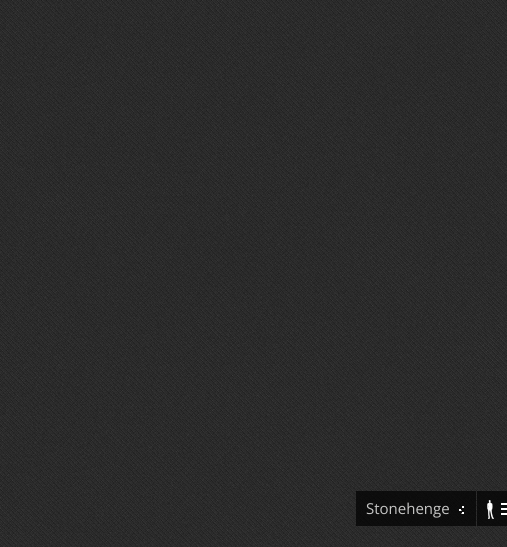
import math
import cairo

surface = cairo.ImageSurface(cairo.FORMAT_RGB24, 507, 547)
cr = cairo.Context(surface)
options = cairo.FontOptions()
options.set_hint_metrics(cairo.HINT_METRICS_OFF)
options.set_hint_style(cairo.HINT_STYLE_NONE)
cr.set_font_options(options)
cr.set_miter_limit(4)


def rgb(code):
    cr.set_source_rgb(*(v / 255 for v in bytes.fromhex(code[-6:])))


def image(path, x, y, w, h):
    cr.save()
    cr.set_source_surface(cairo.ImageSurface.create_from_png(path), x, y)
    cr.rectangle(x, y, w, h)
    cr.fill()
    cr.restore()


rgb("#ffffff")
cr.paint()
image("img/1.png", 0, 0, 507, 547)
cr.set_source_rgba(0, 0, 0, 0.7)
cr.rectangle(356, 491, 120, 35)
cr.fill()
image("img/2.png", 459, 506, 5, 8)
cr.rectangle(477, 491, 20, 35)
cr.fill()
cr.rectangle(497, 491, 10, 35)
cr.fill()
image("img/3.png", 501, 503, 6, 12)
image("img/4.png", 487, 500, 7, 19)
cr.select_font_face("Open Sans")
cr.set_font_size(15)
rgb("#c6c6c5")
cr.move_to(366, 514)
cr.show_text("Stonehenge")
surface.write_to_png("page.png")
